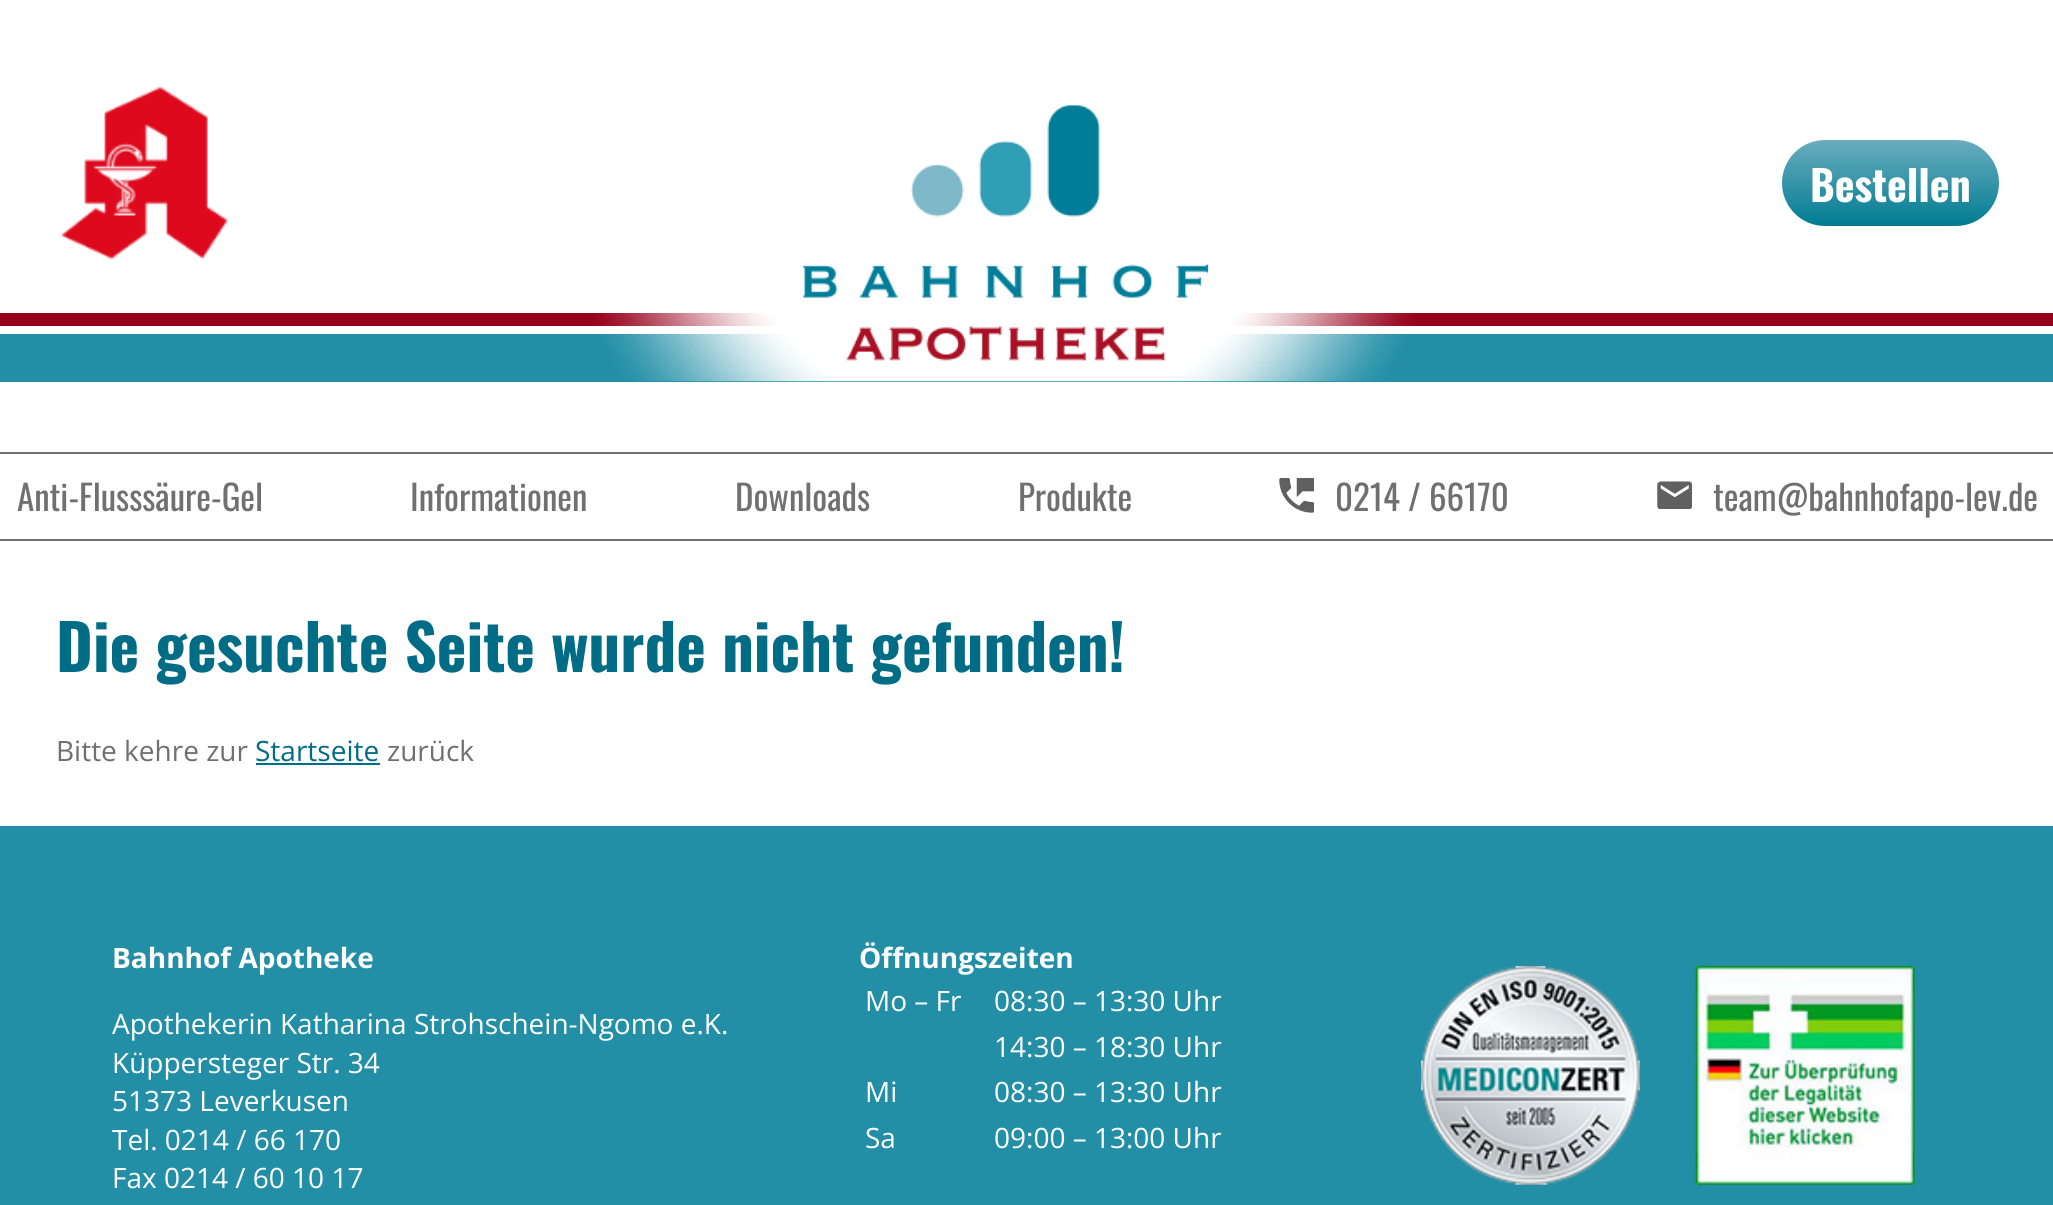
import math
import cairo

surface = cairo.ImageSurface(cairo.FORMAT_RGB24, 2053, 1205)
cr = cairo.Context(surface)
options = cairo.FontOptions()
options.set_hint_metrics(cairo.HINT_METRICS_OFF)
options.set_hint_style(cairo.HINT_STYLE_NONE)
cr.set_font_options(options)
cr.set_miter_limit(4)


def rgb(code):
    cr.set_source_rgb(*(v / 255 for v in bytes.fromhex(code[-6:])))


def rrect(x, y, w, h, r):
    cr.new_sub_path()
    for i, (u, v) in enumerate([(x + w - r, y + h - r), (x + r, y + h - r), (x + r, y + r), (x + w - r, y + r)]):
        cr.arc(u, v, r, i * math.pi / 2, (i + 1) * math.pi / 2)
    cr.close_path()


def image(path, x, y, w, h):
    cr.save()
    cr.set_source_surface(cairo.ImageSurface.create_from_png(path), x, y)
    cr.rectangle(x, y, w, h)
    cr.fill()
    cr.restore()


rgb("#ffffff")
cr.paint()
image("img/1.png", 60, 86, 168, 174)
rgb("#97001b")
cr.rectangle(0, 313, 2053, 13)
cr.fill()
rgb("#238fa7")
cr.rectangle(0, 334, 2053, 48)
cr.fill()
image("img/2.png", 594, 105, 821, 277)
gradient = cairo.LinearGradient(1890, 140, 1890, 226)
gradient.add_color_stop_rgba(0, 0.42, 0.675, 0.745, 1)
gradient.add_color_stop_rgba(1, 0, 0.486, 0.573, 1)
cr.set_source(gradient)
rrect(1782, 140, 217, 86, 43)
cr.fill()
rgb("#707070")
cr.rectangle(0, 452, 2053, 2)
cr.fill()
cr.rectangle(0, 539, 2053, 2)
cr.fill()
image("img/3.png", 1279, 478, 35, 35)
image("img/4.png", 1657, 481, 35, 28)
rgb("#006c86")
cr.rectangle(256, 763, 124, 2)
cr.fill()
rgb("#238fa7")
cr.rectangle(0, 826, 2053, 379)
cr.fill()
image("img/5.png", 1421, 966, 219, 219)
image("img/6.png", 1695, 966, 220, 219)
cr.select_font_face("Oswald", cairo.FONT_SLANT_NORMAL, cairo.FONT_WEIGHT_BOLD)
cr.set_font_size(42)
rgb("#ffffff")
cr.move_to(1810, 202)
cr.show_text("Bestellen")
cr.select_font_face("Oswald")
cr.set_font_size(35)
rgb("#707070")
for x, y, s in [
    (17, 511, "Anti-Flusssäure-Gel"),
    (410, 511, "Informationen"),
    (735, 511, "Downloads"),
    (1018, 511, "Produkte"),
    (1335, 511, "0214 / 66170"),
    (1713, 511, "team@bahnhofapo-lev.de"),
]:
    cr.move_to(x, y)
    cr.show_text(s)
cr.select_font_face("Oswald", cairo.FONT_SLANT_NORMAL, cairo.FONT_WEIGHT_BOLD)
cr.set_font_size(63)
rgb("#006c86")
cr.move_to(56, 672)
cr.show_text("Die gesuchte Seite wurde nicht gefunden!")
cr.select_font_face("Open Sans")
cr.set_font_size(28)
rgb("#707070")
cr.move_to(56, 761)
cr.show_text("Bitte kehre zur")
rgb("#006c86")
cr.move_to(255, 761)
cr.show_text("Startseite")
rgb("#707070")
cr.move_to(387, 761)
cr.show_text("zurück")
cr.select_font_face("Open Sans", cairo.FONT_SLANT_NORMAL, cairo.FONT_WEIGHT_BOLD)
rgb("#ffffff")
cr.move_to(112, 968)
cr.show_text("Bahnhof Apotheke")
cr.select_font_face("Open Sans")
for x, y, s in [
    (112, 1034, "Apothekerin Katharina Strohschein-Ngomo e.K."),
    (112, 1073, "Küppersteger Str. 34"),
    (112, 1111, "51373 Leverkusen"),
    (112, 1150, "Tel. 0214 / 66 170"),
    (112, 1188, "Fax 0214 / 60 10 17"),
]:
    cr.move_to(x, y)
    cr.show_text(s)
cr.select_font_face("Open Sans", cairo.FONT_SLANT_NORMAL, cairo.FONT_WEIGHT_BOLD)
cr.move_to(859, 968)
cr.show_text("Öffnungszeiten")
cr.select_font_face("Open Sans")
for x, y, s in [
    (865, 1011, "Mo – Fr"),
    (994, 1011, "08:30 – 13:30 Uhr"),
    (994, 1057, "14:30 – 18:30 Uhr"),
    (865, 1102, "Mi"),
    (994, 1102, "08:30 – 13:30 Uhr"),
    (865, 1148, "Sa"),
    (994, 1148, "09:00 – 13:00 Uhr"),
]:
    cr.move_to(x, y)
    cr.show_text(s)
surface.write_to_png("page.png")
